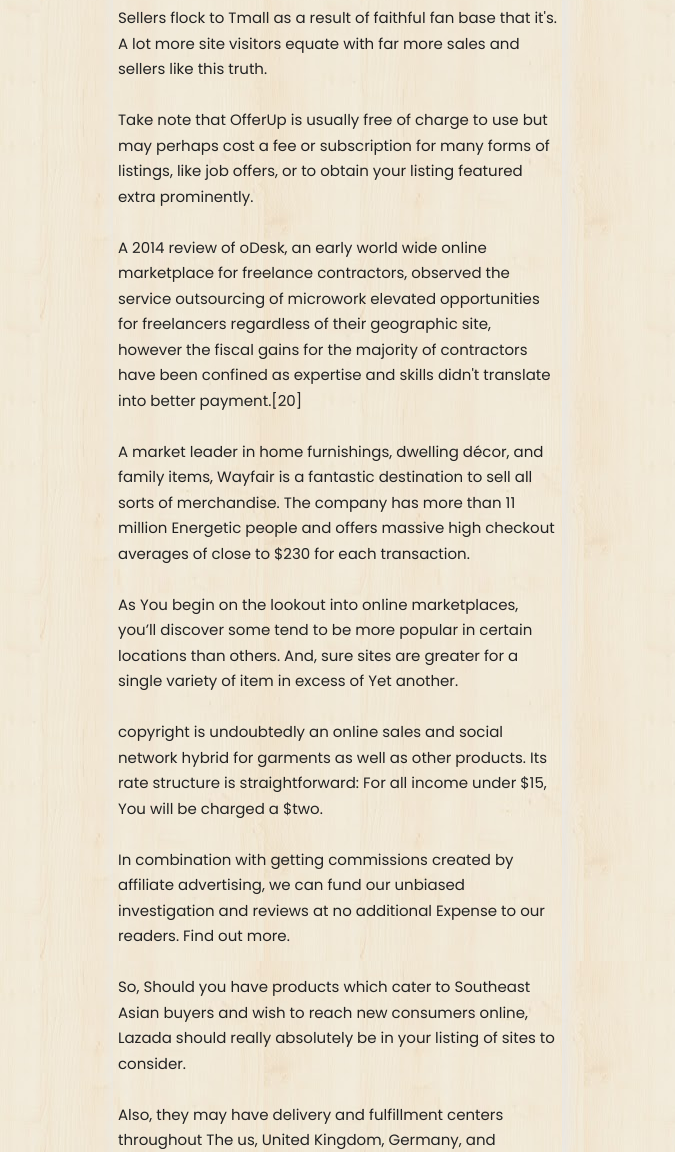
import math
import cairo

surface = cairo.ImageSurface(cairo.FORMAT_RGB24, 675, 1152)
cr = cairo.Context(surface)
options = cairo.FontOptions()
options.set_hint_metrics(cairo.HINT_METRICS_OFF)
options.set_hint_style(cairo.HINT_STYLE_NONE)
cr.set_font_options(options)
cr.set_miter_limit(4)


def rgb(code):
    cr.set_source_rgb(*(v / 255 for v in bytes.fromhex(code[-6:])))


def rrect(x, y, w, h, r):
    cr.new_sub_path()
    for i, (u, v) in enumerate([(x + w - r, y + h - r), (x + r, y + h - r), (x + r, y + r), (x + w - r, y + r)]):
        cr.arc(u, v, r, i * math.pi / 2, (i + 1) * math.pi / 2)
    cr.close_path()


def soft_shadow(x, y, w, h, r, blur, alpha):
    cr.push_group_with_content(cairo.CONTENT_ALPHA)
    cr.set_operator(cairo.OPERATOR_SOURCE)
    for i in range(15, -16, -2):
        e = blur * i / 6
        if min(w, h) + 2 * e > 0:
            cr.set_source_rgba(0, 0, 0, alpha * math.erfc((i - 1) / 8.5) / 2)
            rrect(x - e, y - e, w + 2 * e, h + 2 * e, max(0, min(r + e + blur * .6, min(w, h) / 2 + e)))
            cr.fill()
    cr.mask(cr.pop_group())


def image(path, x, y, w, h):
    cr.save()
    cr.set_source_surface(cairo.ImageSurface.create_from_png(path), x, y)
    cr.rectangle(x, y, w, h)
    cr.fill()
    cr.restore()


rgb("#ffffff")
cr.paint()
image("img/1.png", 0, 0, 675, 1152)
cr.save()
cr.set_fill_rule(cairo.FILL_RULE_EVEN_ODD)
cr.new_path()
cr.move_to(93, 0)
cr.line_to(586, 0)
cr.line_to(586, 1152)
cr.line_to(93, 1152)
cr.close_path()
cr.move_to(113, 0)
cr.line_to(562, 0)
cr.line_to(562, 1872)
cr.line_to(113, 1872)
cr.close_path()
cr.clip()
rgb("#e8e8e8")
soft_shadow(112, -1, 455, 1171, 0, 6, 0.88)
cr.restore()
cr.select_font_face("Poppins")
cr.set_font_size(15)
rgb("#222222")
for x, y, s in [
    (118, 23, "Sellers flock to Tmall as a result of faithful fan base that it's."),
    (118, 49, "A lot more site visitors equate with far more sales and"),
    (118, 74, "sellers like this truth."),
    (118, 125, "Take note that OfferUp is usually free of charge to use but"),
    (118, 151, "may perhaps cost a fee or subscription for many forms of"),
    (118, 176, "listings, like job offers, or to obtain your listing featured"),
    (118, 202, "extra prominently."),
    (118, 253, "A 2014 review of oDesk, an early world wide online"),
    (118, 278, "marketplace for freelance contractors, observed the"),
    (118, 304, "service outsourcing of microwork elevated opportunities"),
    (118, 329, "for freelancers regardless of their geographic site,"),
    (118, 355, "however the fiscal gains for the majority of contractors"),
    (118, 380, "have been confined as expertise and skills didn't translate"),
    (118, 406, "into better payment.[20]"),
    (118, 457, "A market leader in home furnishings, dwelling décor, and"),
    (118, 482, "family items, Wayfair is a fantastic destination to sell all"),
    (118, 508, "sorts of merchandise. The company has more than 11"),
    (118, 533, "million Energetic people and offers massive high checkout"),
    (118, 559, "averages of close to $230 for each transaction."),
    (118, 610, "As You begin on the lookout into online marketplaces,"),
    (118, 635, "you’ll discover some tend to be more popular in certain"),
    (118, 661, "locations than others. And, sure sites are greater for a"),
    (118, 686, "single variety of item in excess of Yet another."),
    (118, 737, "copyright is undoubtedly an online sales and social"),
    (118, 763, "network hybrid for garments as well as other products. Its"),
    (118, 788, "rate structure is straightforward: For all income under $15,"),
    (118, 814, "You will be charged a $two."),
    (118, 865, "In combination with getting commissions created by"),
    (118, 890, "affiliate advertising, we can fund our unbiased"),
    (118, 916, "investigation and reviews at no additional Expense to our"),
    (118, 941, "readers. Find out more."),
    (118, 992, "So, Should you have products which cater to Southeast"),
    (118, 1018, "Asian buyers and wish to reach new consumers online,"),
    (118, 1043, "Lazada should really absolutely be in your listing of sites to"),
    (118, 1069, "consider."),
    (118, 1120, "Also, they may have delivery and fulfillment centers"),
    (118, 1145, "throughout The us, United Kingdom, Germany, and"),
]:
    cr.move_to(x, y)
    cr.show_text(s)
surface.write_to_png("page.png")
